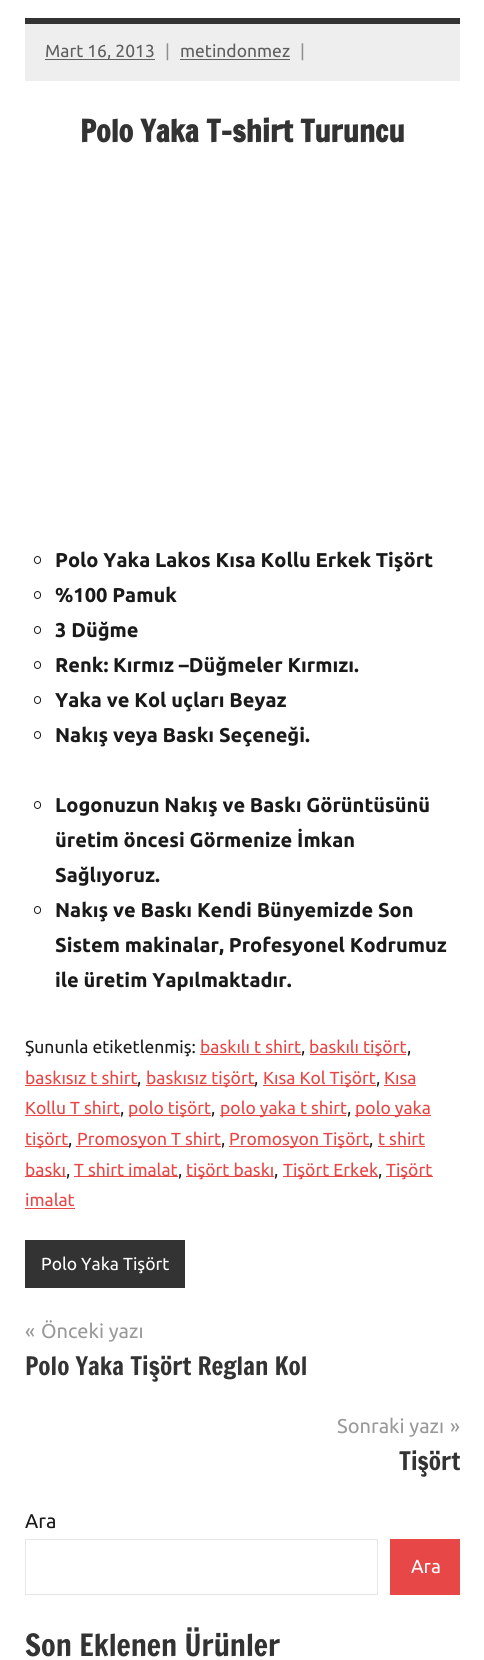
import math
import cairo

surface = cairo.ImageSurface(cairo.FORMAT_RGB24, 484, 1660)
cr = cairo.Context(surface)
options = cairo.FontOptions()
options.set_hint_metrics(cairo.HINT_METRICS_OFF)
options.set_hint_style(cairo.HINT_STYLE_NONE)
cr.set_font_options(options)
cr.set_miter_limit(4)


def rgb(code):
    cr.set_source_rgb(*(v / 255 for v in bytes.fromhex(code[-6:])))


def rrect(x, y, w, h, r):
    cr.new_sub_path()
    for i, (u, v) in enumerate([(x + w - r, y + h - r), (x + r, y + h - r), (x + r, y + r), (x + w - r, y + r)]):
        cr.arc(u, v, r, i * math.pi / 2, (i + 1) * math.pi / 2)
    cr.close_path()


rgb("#ffffff")
cr.paint()
for x, y, w, h, color in [
    (25, 18, 435, 6, "#333333"),
    (25, 24, 435, 57, "#eeeeee"),
    (45, 59, 110, 1, "#5f5f5f"),
    (180, 59, 110, 1, "#5f5f5f"),
]:
    rgb(color)
    cr.rectangle(x, y, w, h)
    cr.fill()
rrect(34.5, 556.5, 6, 7, 3)
rgb("#1a1a1a")
cr.set_line_width(1)
cr.stroke()
rrect(34.5, 591.5, 6, 7, 3)
cr.stroke()
rrect(34.5, 626.5, 6, 7, 3)
cr.stroke()
rrect(34.5, 661.5, 6, 7, 3)
cr.stroke()
rrect(34.5, 696.5, 6, 7, 3)
cr.stroke()
rrect(34.5, 731.5, 6, 7, 3)
cr.stroke()
rrect(34.5, 801.5, 6, 7, 3)
cr.stroke()
rrect(34.5, 906.5, 6, 7, 3)
cr.stroke()
for x, y, w, h, color in [
    (200, 1054, 101, 1, "#e84747"),
    (310, 1054, 96, 1, "#e84747"),
    (25, 1085, 113, 1, "#e84747"),
    (146, 1085, 109, 1, "#e84747"),
    (263, 1085, 113, 1, "#e84747"),
    (384, 1085, 32, 1, "#e84747"),
    (25, 1115, 95, 1, "#e84747"),
    (129, 1115, 82, 1, "#e84747"),
    (220, 1115, 126, 1, "#e84747"),
    (355, 1115, 76, 1, "#e84747"),
    (25, 1146, 44, 1, "#e84747"),
    (76, 1146, 145, 1, "#e84747"),
    (229, 1146, 141, 1, "#e84747"),
    (378, 1146, 47, 1, "#e84747"),
    (25, 1176, 41, 1, "#e84747"),
    (74, 1176, 104, 1, "#e84747"),
    (186, 1176, 88, 1, "#e84747"),
    (283, 1176, 95, 1, "#e84747"),
    (386, 1176, 47, 1, "#e84747"),
    (25, 1208, 50, 1, "#e84747"),
    (25, 1240, 160, 48, "#333333"),
]:
    rgb(color)
    cr.rectangle(x, y, w, h)
    cr.fill()
cr.rectangle(25.5, 1539.5, 352, 55)
rgb("#e6e6e6")
cr.stroke()
rgb("#e84747")
cr.rectangle(390, 1539, 70, 56)
cr.fill()
cr.select_font_face("Ubuntu")
cr.set_font_size(17.5)
rgb("#5f5f5f")
cr.move_to(45, 57)
cr.show_text("Mart 16, 2013")
rgb("#8f8f8f")
cr.move_to(165, 57)
cr.show_text("|")
rgb("#5f5f5f")
cr.move_to(180, 57)
cr.show_text("metindonmez")
rgb("#8f8f8f")
cr.move_to(300, 57)
cr.show_text("|")
cr.select_font_face("Francois One", cairo.FONT_SLANT_NORMAL, cairo.FONT_WEIGHT_BOLD)
cr.set_font_size(30)
rgb("#333333")
cr.move_to(80, 142)
cr.show_text("Polo Yaka T-shirt Turuncu")
cr.select_font_face("Ubuntu", cairo.FONT_SLANT_NORMAL, cairo.FONT_WEIGHT_BOLD)
cr.set_font_size(20)
rgb("#1a1a1a")
for x, y, s in [
    (55, 567, "Polo Yaka Lakos Kısa Kollu Erkek Tişört"),
    (55, 602, "%100 Pamuk"),
    (55, 637, "3 Düğme"),
    (55, 672, "Renk: Kırmız –Düğmeler Kırmızı."),
    (55, 707, "Yaka ve Kol uçları Beyaz"),
    (55, 742, "Nakış veya Baskı Seçeneği."),
    (55, 812, "Logonuzun Nakış ve Baskı Görüntüsünü"),
    (55, 847, "üretim öncesi Görmenize İmkan"),
    (55, 882, "Sağlıyoruz."),
    (55, 917, "Nakış ve Baskı Kendi Bünyemizde Son"),
    (55, 952, "Sistem makinalar, Profesyonel Kodrumuz"),
    (55, 987, "ile üretim Yapılmaktadır."),
]:
    cr.move_to(x, y)
    cr.show_text(s)
cr.select_font_face("Ubuntu")
cr.set_font_size(17.5)
cr.move_to(25, 1053)
cr.show_text("Şununla etiketlenmiş:")
rgb("#e84747")
cr.move_to(200, 1053)
cr.show_text("baskılı t shirt")
rgb("#1a1a1a")
cr.move_to(301, 1053)
cr.show_text(",")
rgb("#e84747")
cr.move_to(309, 1053)
cr.show_text("baskılı tişört")
rgb("#1a1a1a")
cr.move_to(407, 1053)
cr.show_text(",")
rgb("#e84747")
cr.move_to(25, 1084)
cr.show_text("baskısız t shirt")
rgb("#1a1a1a")
cr.move_to(137, 1084)
cr.show_text(",")
rgb("#e84747")
cr.move_to(146, 1084)
cr.show_text("baskısız tişört")
rgb("#1a1a1a")
cr.move_to(254, 1084)
cr.show_text(",")
rgb("#e84747")
cr.move_to(263, 1084)
cr.show_text("Kısa Kol Tişört")
rgb("#1a1a1a")
cr.move_to(376, 1084)
cr.show_text(",")
rgb("#e84747")
cr.move_to(384, 1084)
cr.show_text("Kısa")
cr.move_to(25, 1114)
cr.show_text("Kollu T shirt")
rgb("#1a1a1a")
cr.move_to(120, 1114)
cr.show_text(",")
rgb("#e84747")
cr.move_to(128, 1114)
cr.show_text("polo tişört")
rgb("#1a1a1a")
cr.move_to(211, 1114)
cr.show_text(",")
rgb("#e84747")
cr.move_to(220, 1114)
cr.show_text("polo yaka t shirt")
rgb("#1a1a1a")
cr.move_to(347, 1114)
cr.show_text(",")
rgb("#e84747")
cr.move_to(355, 1114)
cr.show_text("polo yaka")
cr.move_to(25, 1145)
cr.show_text("tişört")
rgb("#1a1a1a")
cr.move_to(68, 1145)
cr.show_text(",")
rgb("#e84747")
cr.move_to(77, 1145)
cr.show_text("Promosyon T shirt")
rgb("#1a1a1a")
cr.move_to(221, 1145)
cr.show_text(",")
rgb("#e84747")
cr.move_to(229, 1145)
cr.show_text("Promosyon Tişört")
rgb("#1a1a1a")
cr.move_to(369, 1145)
cr.show_text(",")
rgb("#e84747")
cr.move_to(378, 1145)
cr.show_text("t shirt")
cr.move_to(25, 1176)
cr.show_text("baskı")
rgb("#1a1a1a")
cr.move_to(66, 1176)
cr.show_text(",")
rgb("#e84747")
cr.move_to(74, 1176)
cr.show_text("T shirt imalat")
rgb("#1a1a1a")
cr.move_to(178, 1176)
cr.show_text(",")
rgb("#e84747")
cr.move_to(186, 1176)
cr.show_text("tişört baskı")
rgb("#1a1a1a")
cr.move_to(274, 1176)
cr.show_text(",")
rgb("#e84747")
cr.move_to(283, 1176)
cr.show_text("Tişört Erkek")
rgb("#1a1a1a")
cr.move_to(378, 1176)
cr.show_text(",")
rgb("#e84747")
cr.move_to(386, 1176)
cr.show_text("Tişört")
cr.move_to(25, 1206)
cr.show_text("imalat")
rgb("#ffffff")
cr.move_to(41, 1270)
cr.show_text("Polo Yaka Tişört")
cr.set_font_size(20)
rgb("#999999")
cr.move_to(25, 1338)
cr.show_text("«")
cr.move_to(41, 1338)
cr.show_text("Önceki yazı")
cr.select_font_face("Francois One")
cr.set_font_size(25)
rgb("#333333")
cr.move_to(25, 1375)
cr.show_text("Polo Yaka Tişört Reglan Kol")
cr.select_font_face("Ubuntu")
cr.set_font_size(20)
rgb("#999999")
cr.move_to(337, 1433)
cr.show_text("Sonraki yazı")
cr.move_to(450, 1433)
cr.show_text("»")
cr.select_font_face("Francois One")
cr.set_font_size(25)
rgb("#333333")
cr.move_to(399, 1470)
cr.show_text("Tişört")
cr.select_font_face("Ubuntu")
cr.set_font_size(20)
rgb("#1a1a1a")
cr.move_to(25, 1528)
cr.show_text("Ara")
cr.set_font_size(19)
rgb("#ffffff")
cr.move_to(411, 1573)
cr.show_text("Ara")
cr.select_font_face("Francois One")
cr.set_font_size(30)
rgb("#333333")
cr.move_to(25, 1656)
cr.show_text("Son Eklenen Ürünler")
surface.write_to_png("page.png")
